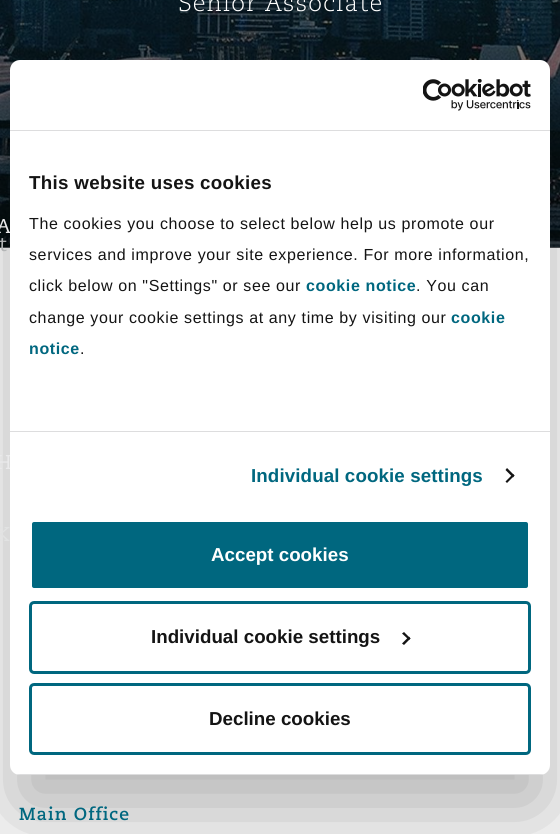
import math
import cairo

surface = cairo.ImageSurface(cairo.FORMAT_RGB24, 560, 834)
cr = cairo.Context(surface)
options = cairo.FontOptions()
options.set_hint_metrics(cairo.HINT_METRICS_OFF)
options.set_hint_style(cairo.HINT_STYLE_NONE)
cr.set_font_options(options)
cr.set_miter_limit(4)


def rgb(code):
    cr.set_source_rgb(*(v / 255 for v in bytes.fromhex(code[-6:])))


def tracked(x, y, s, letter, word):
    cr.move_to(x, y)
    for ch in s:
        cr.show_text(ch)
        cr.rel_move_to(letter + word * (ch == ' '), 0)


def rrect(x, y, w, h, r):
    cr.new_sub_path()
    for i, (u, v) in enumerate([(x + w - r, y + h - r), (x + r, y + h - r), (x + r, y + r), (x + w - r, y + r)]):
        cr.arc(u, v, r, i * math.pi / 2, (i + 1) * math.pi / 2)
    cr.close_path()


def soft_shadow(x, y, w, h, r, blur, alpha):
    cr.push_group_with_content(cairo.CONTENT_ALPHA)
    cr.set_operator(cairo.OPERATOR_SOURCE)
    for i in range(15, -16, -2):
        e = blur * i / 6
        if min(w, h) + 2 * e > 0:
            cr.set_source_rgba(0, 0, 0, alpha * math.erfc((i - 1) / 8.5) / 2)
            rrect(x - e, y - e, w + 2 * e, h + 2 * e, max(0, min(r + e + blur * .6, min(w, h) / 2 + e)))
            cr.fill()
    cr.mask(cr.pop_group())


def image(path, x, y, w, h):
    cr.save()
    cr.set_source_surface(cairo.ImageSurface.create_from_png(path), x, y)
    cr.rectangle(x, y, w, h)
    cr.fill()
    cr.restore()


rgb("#ffffff")
cr.paint()
rgb("#53565a")
cr.rectangle(0, 247, 560, 1)
cr.fill()
image("img/1.png", 0, 0, 560, 247)
rgb("#000000")
soft_shadow(10, 100, 540, 715, 10, 42.5, 0.3)
cr.select_font_face("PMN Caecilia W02 Light")
cr.set_font_size(23.75)
rgb("#ffffff")
tracked(178, 11, "Senior Associate", 1.1, 0)
cr.select_font_face("PMN Caecilia W02", cairo.FONT_SLANT_NORMAL, cairo.FONT_WEIGHT_BOLD)
cr.set_font_size(17.5)
rgb("#00677f")
tracked(19, 820, "Main Office", 1.1, 0)
cr.select_font_face("PMN Caecilia W02")
cr.set_font_size(20)
rgb("#eaeaeb")
tracked(-4, 233, "A", 1, 0)
tracked(-4, 469, "H", 1, 0)
rgb("#b3b5b6")
tracked(-1, 251, "t", 1, 0)
rgb("#e1e2e2")
tracked(-4, 541, "K", 1, 0)
rgb("#ffffff")
rrect(10, 60, 540, 715, 10)
cr.fill()
rgb("#ddddde")
cr.rectangle(10, 130, 540, 1)
cr.fill()
image("img/2.png", 423, 79, 108, 32)
cr.rectangle(10, 431, 540, 1)
cr.fill()
cr.select_font_face("Liberation Sans", cairo.FONT_SLANT_NORMAL, cairo.FONT_WEIGHT_BOLD)
cr.set_font_size(18.75)
rgb("#141414")
tracked(29, 189, "This website uses cookies", 0.3, 0)
cr.select_font_face("Liberation Sans")
cr.set_font_size(16)
for x, y, s in [
    (29, 229, "The cookies you choose to select below help us promote our"),
    (29, 260, "services and improve your site experience. For more information,"),
    (29, 291, "click below on \"Settings\" or see our"),
]:
    tracked(x, y, s, 0.62, 0)
cr.select_font_face("Liberation Sans", cairo.FONT_SLANT_NORMAL, cairo.FONT_WEIGHT_BOLD)
rgb("#00677f")
tracked(306, 291, "cookie notice", 0.62, 0)
cr.select_font_face("Liberation Sans")
rgb("#141414")
tracked(416, 291, ". You can", 0.62, 0)
tracked(29, 323, "change your cookie settings at any time by visiting our", 0.62, 0)
cr.select_font_face("Liberation Sans", cairo.FONT_SLANT_NORMAL, cairo.FONT_WEIGHT_BOLD)
rgb("#00677f")
tracked(451, 323, "cookie", 0.62, 0)
tracked(29, 354, "notice", 0.62, 0)
cr.select_font_face("Liberation Sans")
rgb("#141414")
tracked(80, 354, ".", 0.62, 0)
cr.select_font_face("Liberation Sans", cairo.FONT_SLANT_NORMAL, cairo.FONT_WEIGHT_BOLD)
cr.set_font_size(18.75)
rgb("#00677f")
tracked(251, 482, "Individual cookie settings", 0.1, 0)
rgb("#141414")
cr.new_path()
cr.move_to(507, 468)
cr.line_to(514.5, 475.5)
cr.line_to(513, 477.5)
cr.line_to(505.5, 470)
cr.close_path()
cr.fill()
cr.new_path()
cr.move_to(513, 474)
cr.line_to(514.5, 475.5)
cr.line_to(507, 483)
cr.line_to(505.5, 481.5)
cr.close_path()
cr.fill()
cr.save()
rrect(10, 60, 540, 715, 10)
cr.clip()
rgb("#ddddde")
cr.rectangle(10, 774, 540, 1)
cr.fill()
cr.restore()
rgb("#00677f")
rrect(30.5, 520.5, 499, 69, 3.5)
cr.fill_preserve()
rgb("#ffffff")
cr.set_line_width(3)
cr.stroke()
cr.move_to(211, 561)
cr.show_text("Accept cookies")
rrect(30.5, 602.5, 499, 70, 3.5)
rgb("#00677f")
cr.stroke()
rgb("#141414")
cr.move_to(151, 643)
cr.show_text("Individual cookie settings")
cr.new_path()
cr.move_to(404, 632)
cr.line_to(410.5, 638.5)
cr.line_to(409, 640)
cr.line_to(402, 633.5)
cr.close_path()
cr.fill()
cr.new_path()
cr.move_to(409, 636.5)
cr.line_to(410.5, 638.5)
cr.line_to(404, 645)
cr.line_to(402, 643.5)
cr.close_path()
cr.fill()
rrect(30.5, 684.5, 499, 69, 3.5)
rgb("#00677f")
cr.stroke()
rgb("#141414")
cr.move_to(209, 725)
cr.show_text("Decline cookies")
surface.write_to_png("page.png")
